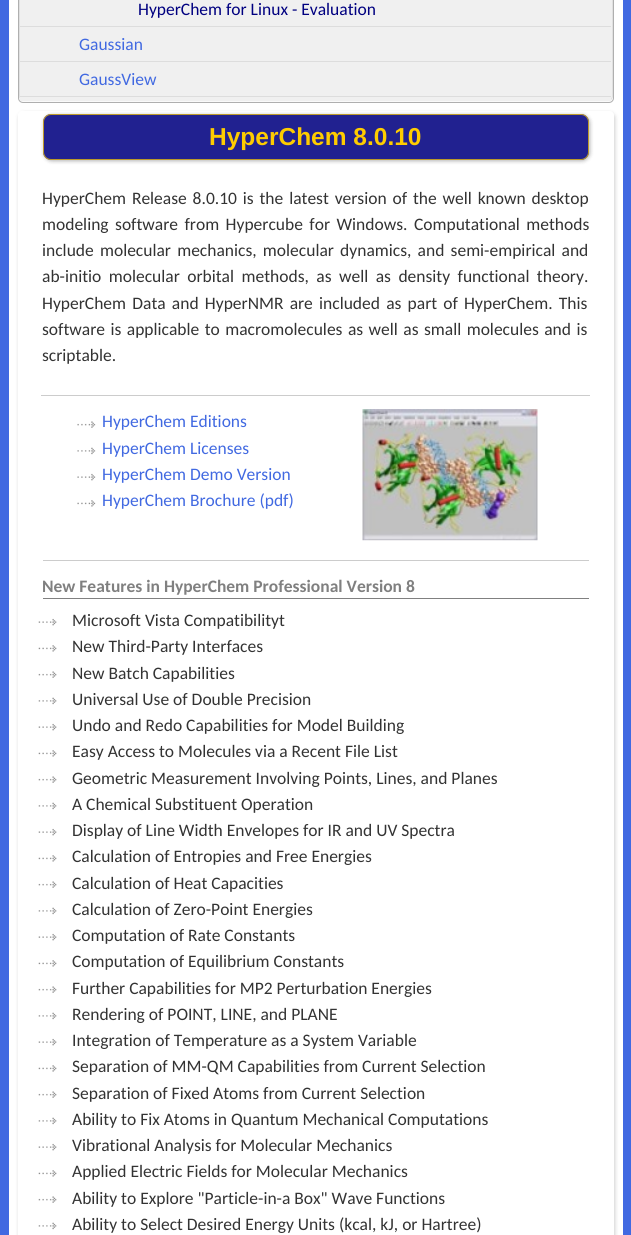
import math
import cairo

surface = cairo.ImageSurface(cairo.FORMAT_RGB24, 631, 1235)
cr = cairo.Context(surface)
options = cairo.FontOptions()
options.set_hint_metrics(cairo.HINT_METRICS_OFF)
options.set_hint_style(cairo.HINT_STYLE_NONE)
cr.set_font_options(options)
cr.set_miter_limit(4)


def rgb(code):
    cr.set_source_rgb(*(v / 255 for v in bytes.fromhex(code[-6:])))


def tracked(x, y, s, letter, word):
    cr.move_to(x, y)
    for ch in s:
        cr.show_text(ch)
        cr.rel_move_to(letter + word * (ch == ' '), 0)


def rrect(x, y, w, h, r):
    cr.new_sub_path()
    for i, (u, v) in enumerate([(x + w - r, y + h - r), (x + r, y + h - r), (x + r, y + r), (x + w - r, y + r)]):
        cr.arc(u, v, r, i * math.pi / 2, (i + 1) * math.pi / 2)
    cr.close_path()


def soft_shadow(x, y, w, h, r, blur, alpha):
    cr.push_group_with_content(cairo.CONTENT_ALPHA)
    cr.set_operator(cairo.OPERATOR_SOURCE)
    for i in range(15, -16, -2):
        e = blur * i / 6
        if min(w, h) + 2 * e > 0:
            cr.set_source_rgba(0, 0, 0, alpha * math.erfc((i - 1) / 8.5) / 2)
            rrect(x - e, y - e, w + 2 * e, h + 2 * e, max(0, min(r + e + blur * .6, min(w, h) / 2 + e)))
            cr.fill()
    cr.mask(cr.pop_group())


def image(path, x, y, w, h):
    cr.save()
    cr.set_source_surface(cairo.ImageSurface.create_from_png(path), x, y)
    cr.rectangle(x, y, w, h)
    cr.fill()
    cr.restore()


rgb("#4169e1")
cr.paint()
rgb("#ffffff")
cr.rectangle(9, 0, 614, 1235)
cr.fill()
rgb("#fafafa")
rrect(18.5, -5.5, 595, 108, 4.5)
cr.fill_preserve()
rgb("#afafaf")
cr.set_line_width(1)
cr.stroke()
rgb("#f0f0f0")
rrect(19.5, -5.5, 593, 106, 4.5)
cr.fill_preserve()
rgb("#e0e0e0")
cr.stroke()
for x, y, w, h, color in [
    (20, 98, 591, 3, "#f0f0f0"),
    (20, 26, 591, 1, "#dddddd"),
    (20, 61, 591, 1, "#dddddd"),
    (20, 97, 1, 1, "#f0f0f0"),
    (20, 96, 591, 1, "#dddddd"),
]:
    rgb(color)
    cr.rectangle(x, y, w, h)
    cr.fill()
cr.save()
cr.set_fill_rule(cairo.FILL_RULE_EVEN_ODD)
cr.new_path()
cr.move_to(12, 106)
cr.line_to(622, 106)
cr.line_to(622, 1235)
cr.line_to(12, 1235)
cr.close_path()
cr.move_to(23, 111)
cr.line_to(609, 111)
cr.curve_to(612, 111, 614, 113, 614, 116)
cr.line_to(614, 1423)
cr.curve_to(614, 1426, 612, 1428, 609, 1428)
cr.line_to(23, 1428)
cr.curve_to(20, 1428, 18, 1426, 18, 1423)
cr.line_to(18, 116)
cr.curve_to(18, 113, 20, 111, 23, 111)
cr.close_path()
cr.clip()
rgb("#000000")
soft_shadow(19, 113, 596, 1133, 5, 2, 0.2)
cr.restore()
rgb("#000000")
soft_shadow(44, 115, 546, 46, 8, 2, 0.3)
rgb("#212190")
rrect(43, 114, 546, 46, 8)
cr.fill()
rrect(43.5, 114.5, 545, 45, 7.5)
cr.set_source_rgba(0.996, 0.8, 0, 0.7)
cr.stroke()
rgb("#cccccc")
cr.rectangle(41, 395, 549, 1)
cr.fill()
cr.rectangle(43, 560, 546, 1)
cr.fill()
image("img/1.png", 77, 421, 19, 7)
image("img/2.png", 77, 447, 19, 8)
image("img/3.png", 77, 473, 19, 8)
image("img/4.png", 77, 500, 19, 7)
image("img/5.png", 362, 409, 176, 132)
rgb("#808080")
cr.rectangle(43, 598, 546, 1)
cr.fill()
image("img/6.png", 38, 618, 19, 8)
image("img/7.png", 38, 645, 19, 7)
image("img/8.png", 38, 671, 19, 7)
image("img/9.png", 38, 697, 19, 8)
image("img/6.png", 38, 723, 19, 8)
image("img/7.png", 38, 750, 19, 7)
image("img/10.png", 38, 776, 19, 7)
image("img/9.png", 38, 802, 19, 8)
image("img/6.png", 38, 828, 19, 8)
image("img/7.png", 38, 855, 19, 7)
image("img/10.png", 38, 881, 19, 7)
image("img/9.png", 38, 907, 19, 8)
image("img/6.png", 38, 933, 19, 8)
image("img/7.png", 38, 960, 19, 7)
image("img/10.png", 38, 986, 19, 7)
image("img/9.png", 38, 1012, 19, 8)
image("img/6.png", 38, 1038, 19, 8)
image("img/11.png", 38, 1065, 19, 7)
image("img/10.png", 38, 1091, 19, 7)
image("img/9.png", 38, 1117, 19, 8)
image("img/6.png", 38, 1143, 19, 8)
image("img/7.png", 38, 1170, 19, 7)
image("img/10.png", 38, 1196, 19, 7)
image("img/9.png", 38, 1222, 19, 8)
cr.select_font_face("Carlito")
cr.set_font_size(17.5)
rgb("#000080")
cr.move_to(138, 15)
cr.show_text("HyperChem for Linux - Evaluation")
rgb("#4169e1")
cr.move_to(79, 50)
cr.show_text("Gaussian")
cr.move_to(79, 85)
cr.show_text("GaussView")
cr.select_font_face("Liberation Sans", cairo.FONT_SLANT_NORMAL, cairo.FONT_WEIGHT_BOLD)
cr.set_font_size(24.5)
rgb("#fecc00")
cr.move_to(209, 145)
cr.show_text("HyperChem 8.0.10")
cr.select_font_face("Carlito")
cr.set_font_size(17.5)
rgb("#333333")
tracked(42, 204, "HyperChem Release 8.0.10 is the latest version of the well known desktop", 0, 1.9)
tracked(42, 230, "modeling software from Hypercube for Windows. Computational methods", 0, 2.5)
tracked(42, 256, "include molecular mechanics, molecular dynamics, and semi-empirical and", 0, 2.25)
tracked(42, 282, "ab-initio molecular orbital methods, as well as density functional theory.", 0, 3.5)
tracked(42, 309, "HyperChem Data and HyperNMR are included as part of HyperChem. This", 0, 2.25)
tracked(42, 335, "software is applicable to macromolecules as well as small molecules and is", 0, 1.5)
cr.move_to(42, 361)
cr.show_text("scriptable.")
rgb("#4169e1")
for x, y, s in [
    (102, 427, "HyperChem Editions"),
    (102, 454, "HyperChem Licenses"),
    (102, 480, "HyperChem Demo Version"),
    (102, 506, "HyperChem Brochure (pdf)"),
]:
    cr.move_to(x, y)
    cr.show_text(s)
cr.select_font_face("Carlito", cairo.FONT_SLANT_NORMAL, cairo.FONT_WEIGHT_BOLD)
rgb("#808080")
cr.move_to(42, 592)
cr.show_text("New Features in HyperChem Professional Version 8")
cr.select_font_face("Carlito")
rgb("#333333")
for x, y, s in [
    (72, 626, "Microsoft Vista Compatibilityt"),
    (72, 652, "New Third-Party Interfaces"),
    (72, 679, "New Batch Capabilities"),
    (72, 705, "Universal Use of Double Precision"),
    (72, 731, "Undo and Redo Capabilities for Model Building"),
    (72, 757, "Easy Access to Molecules via a Recent File List"),
    (72, 784, "Geometric Measurement Involving Points, Lines, and Planes"),
    (72, 810, "A Chemical Substituent Operation"),
    (72, 836, "Display of Line Width Envelopes for IR and UV Spectra"),
    (72, 862, "Calculation of Entropies and Free Energies"),
    (72, 889, "Calculation of Heat Capacities"),
    (72, 915, "Calculation of Zero-Point Energies"),
    (72, 941, "Computation of Rate Constants"),
    (72, 967, "Computation of Equilibrium Constants"),
    (72, 994, "Further Capabilities for MP2 Perturbation Energies"),
    (72, 1020, "Rendering of POINT, LINE, and PLANE"),
    (72, 1046, "Integration of Temperature as a System Variable"),
    (72, 1072, "Separation of MM-QM Capabilities from Current Selection"),
    (72, 1099, "Separation of Fixed Atoms from Current Selection"),
    (72, 1125, "Ability to Fix Atoms in Quantum Mechanical Computations"),
    (72, 1151, "Vibrational Analysis for Molecular Mechanics"),
    (72, 1177, "Applied Electric Fields for Molecular Mechanics"),
    (72, 1204, "Ability to Explore \"Particle-in-a Box\" Wave Functions"),
    (72, 1230, "Ability to Select Desired Energy Units (kcal, kJ, or Hartree)"),
]:
    cr.move_to(x, y)
    cr.show_text(s)
surface.write_to_png("page.png")
